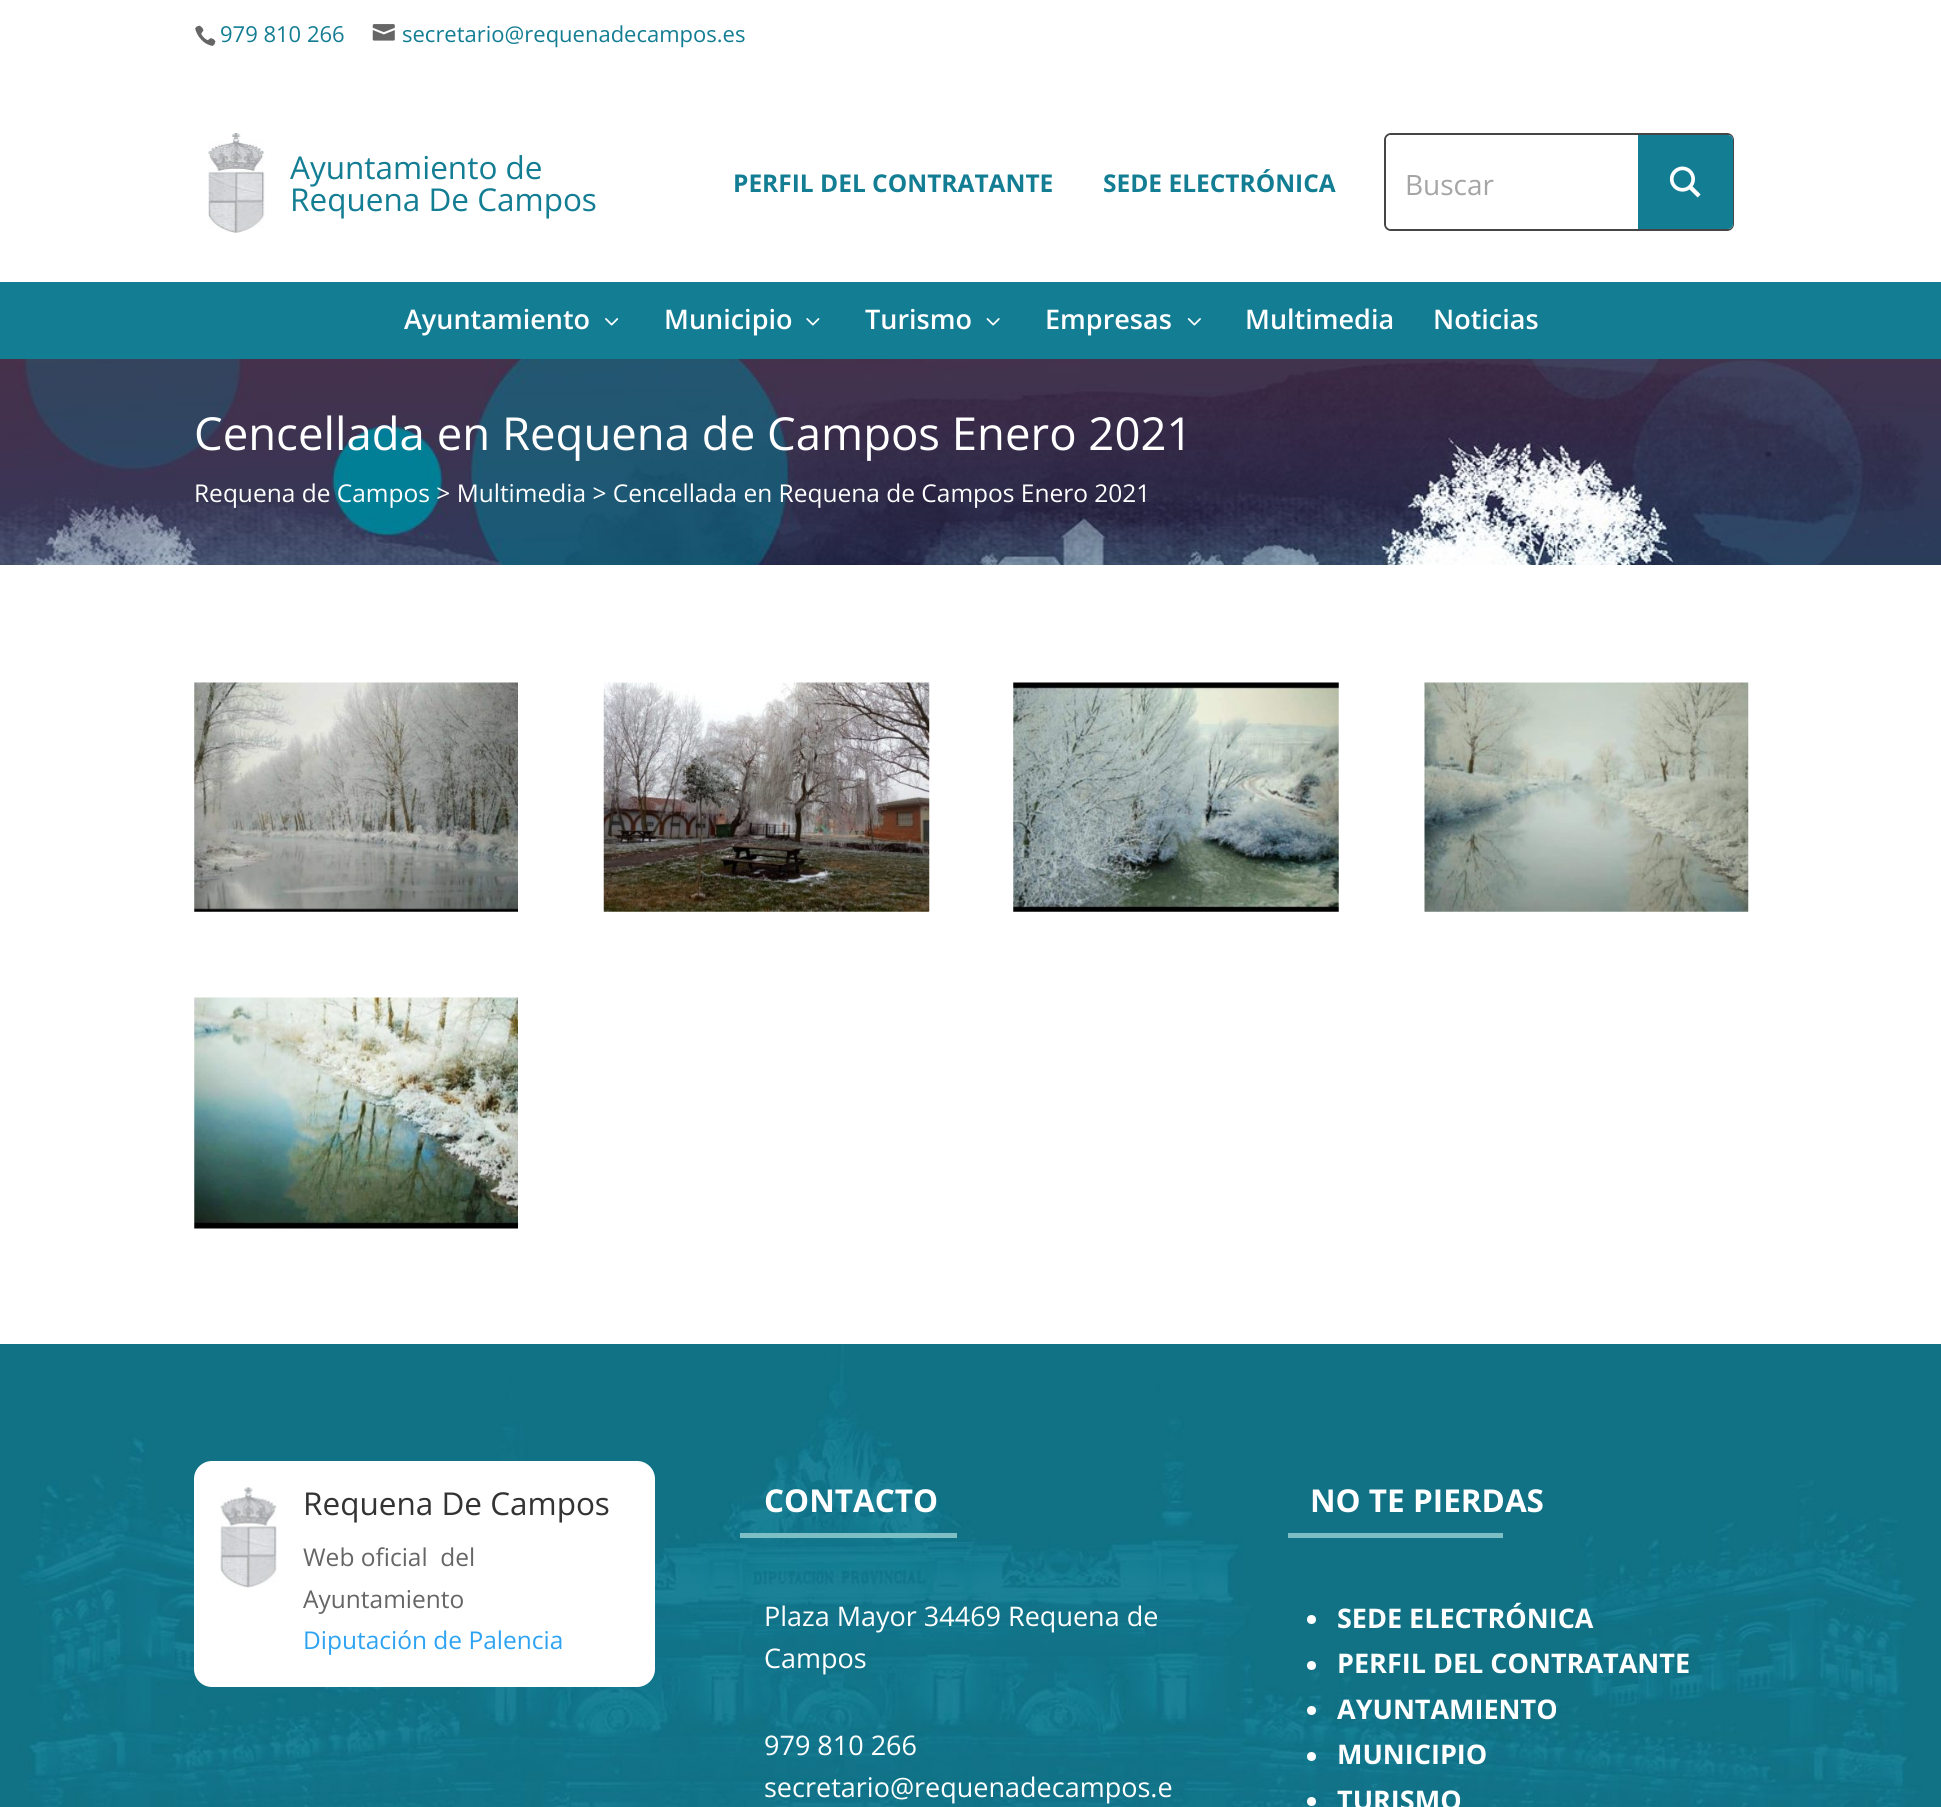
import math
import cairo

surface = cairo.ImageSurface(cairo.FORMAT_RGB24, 1941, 1807)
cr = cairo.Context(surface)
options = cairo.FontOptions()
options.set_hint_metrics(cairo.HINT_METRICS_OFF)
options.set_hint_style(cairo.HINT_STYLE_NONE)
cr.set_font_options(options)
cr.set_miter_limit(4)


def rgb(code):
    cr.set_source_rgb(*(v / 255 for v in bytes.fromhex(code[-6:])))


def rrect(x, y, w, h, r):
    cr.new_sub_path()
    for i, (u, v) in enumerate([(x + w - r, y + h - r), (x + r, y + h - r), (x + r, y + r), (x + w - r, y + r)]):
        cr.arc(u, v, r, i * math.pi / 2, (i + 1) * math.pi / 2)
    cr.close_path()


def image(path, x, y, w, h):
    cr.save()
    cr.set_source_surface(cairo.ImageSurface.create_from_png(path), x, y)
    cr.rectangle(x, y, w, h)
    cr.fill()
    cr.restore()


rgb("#ffffff")
cr.paint()
image("img/1.png", 195, 25, 21, 21)
image("img/2.png", 372, 24, 23, 17)
image("img/3.png", 208, 133, 57, 100)
gradient = cairo.RadialGradient(0, 0, 0, 0, 0, 1)
gradient.set_matrix(cairo.Matrix(1 / 245, 0, 0, 1 / 67, -1 * 1559 / 245, -1 * 182 / 67))
gradient.add_color_stop_rgba(0, 1, 0.988, 0.988, 1)
gradient.add_color_stop_rgba(1, 1, 1, 1, 1)
cr.set_source(gradient)
cr.rectangle(1518, 171, 82, 22)
cr.fill()
rrect(1385, 134, 348, 96, 6)
cr.set_source_rgba(0, 0, 0, 0.73)
cr.stroke()
rgb("#ffffff")
rrect(1386, 135, 347, 94, 5)
cr.fill()
rgb("#137d93")
cr.new_path()
cr.move_to(1638, 135)
cr.line_to(1728, 135)
cr.curve_to(1731, 135, 1733, 137, 1733, 140)
cr.line_to(1733, 224)
cr.curve_to(1733, 227, 1731, 229, 1728, 229)
cr.line_to(1638, 229)
cr.close_path()
cr.fill()
image("img/4.png", 1669, 166, 32, 32)
cr.rectangle(0, 282, 1941, 77)
cr.fill()
image("img/5.png", 605, 318, 14, 8)
image("img/6.png", 806, 318, 14, 8)
image("img/7.png", 986, 318, 14, 8)
image("img/8.png", 1187, 318, 14, 8)
image("img/9.png", 0, 359, 1941, 206)
image("img/10.png", 194, 682, 324, 230)
image("img/11.png", 603, 682, 327, 230)
image("img/12.png", 1013, 682, 326, 230)
image("img/13.png", 1424, 682, 325, 230)
image("img/14.png", 194, 997, 324, 232)
image("img/15.png", 0, 1344, 1941, 463)
rgb("#ffffff")
rrect(194, 1461, 461, 226, 18)
cr.fill()
image("img/16.png", 220, 1487, 57, 101)
rgb("#7ebec5")
cr.rectangle(740, 1533, 217, 5)
cr.fill()
cr.rectangle(1288, 1533, 215, 5)
cr.fill()
rgb("#ffffff")
cr.arc(1311.5, 1619.5, 4.5, 0, 2 * math.pi)
cr.fill()
cr.arc(1311.5, 1665.5, 4.5, 0, 2 * math.pi)
cr.fill()
cr.arc(1311.5, 1710.5, 4.5, 0, 2 * math.pi)
cr.fill()
cr.arc(1311.5, 1756.5, 4.5, 0, 2 * math.pi)
cr.fill()
cr.arc(1311.5, 1801.5, 4.5, 0, 2 * math.pi)
cr.fill()
cr.select_font_face("Open Sans")
cr.set_font_size(22)
rgb("#137d93")
cr.move_to(220, 42)
cr.show_text("979 810 266")
cr.move_to(402, 42)
cr.show_text("secretario@requenadecampos.es")
cr.set_font_size(31.5)
cr.move_to(290, 179)
cr.show_text("Ayuntamiento de")
cr.move_to(290, 211)
cr.show_text("Requena De Campos")
cr.select_font_face("Open Sans", cairo.FONT_SLANT_NORMAL, cairo.FONT_WEIGHT_BOLD)
cr.set_font_size(24.5)
cr.move_to(733, 192)
cr.show_text("PERFIL DEL CONTRATANTE")
cr.move_to(1103, 192)
cr.show_text("SEDE ELECTRÓNICA")
cr.select_font_face("Open Sans")
cr.set_font_size(28)
rgb("#a5a5a5")
cr.move_to(1405, 195)
cr.show_text("Buscar")
cr.select_font_face("Open Sans SemiBold")
cr.set_font_size(27)
rgb("#ffffff")
for x, y, s in [
    (404, 329, "Ayuntamiento"),
    (664, 329, "Municipio"),
    (865, 329, "Turismo"),
    (1045, 329, "Empresas"),
    (1245, 329, "Multimedia"),
    (1433, 329, "Noticias"),
]:
    cr.move_to(x, y)
    cr.show_text(s)
cr.select_font_face("Open Sans")
cr.set_font_size(45.5)
cr.move_to(194, 450)
cr.show_text("Cencellada en Requena de Campos Enero 2021")
cr.set_font_size(24.5)
cr.move_to(194, 502)
cr.show_text("Requena de Campos > Multimedia > Cencellada en Requena de Campos Enero 2021")
cr.set_font_size(31.5)
rgb("#333333")
cr.move_to(303, 1515)
cr.show_text("Requena De Campos")
cr.set_font_size(24.5)
rgb("#666666")
cr.move_to(303, 1566)
cr.show_text("Web oficial  del")
cr.move_to(303, 1608)
cr.show_text("Ayuntamiento")
rgb("#2ea3f2")
cr.move_to(303, 1649)
cr.show_text("Diputación de Palencia")
cr.select_font_face("Open Sans", cairo.FONT_SLANT_NORMAL, cairo.FONT_WEIGHT_BOLD)
cr.set_font_size(31.5)
rgb("#ffffff")
cr.move_to(764, 1512)
cr.show_text("CONTACTO")
cr.select_font_face("Open Sans")
cr.set_font_size(27)
for x, y, s in [
    (764, 1626, "Plaza Mayor 34469 Requena de"),
    (764, 1668, "Campos"),
    (764, 1755, "979 810 266"),
    (764, 1797, "secretario@requenadecampos.e"),
]:
    cr.move_to(x, y)
    cr.show_text(s)
cr.select_font_face("Open Sans", cairo.FONT_SLANT_NORMAL, cairo.FONT_WEIGHT_BOLD)
cr.set_font_size(31.5)
cr.move_to(1310, 1512)
cr.show_text("NO TE PIERDAS")
cr.set_font_size(27)
for x, y, s in [
    (1337, 1628, "SEDE ELECTRÓNICA"),
    (1337, 1673, "PERFIL DEL CONTRATANTE"),
    (1337, 1719, "AYUNTAMIENTO"),
    (1337, 1764, "MUNICIPIO"),
    (1337, 1810, "TURISMO"),
]:
    cr.move_to(x, y)
    cr.show_text(s)
surface.write_to_png("page.png")
